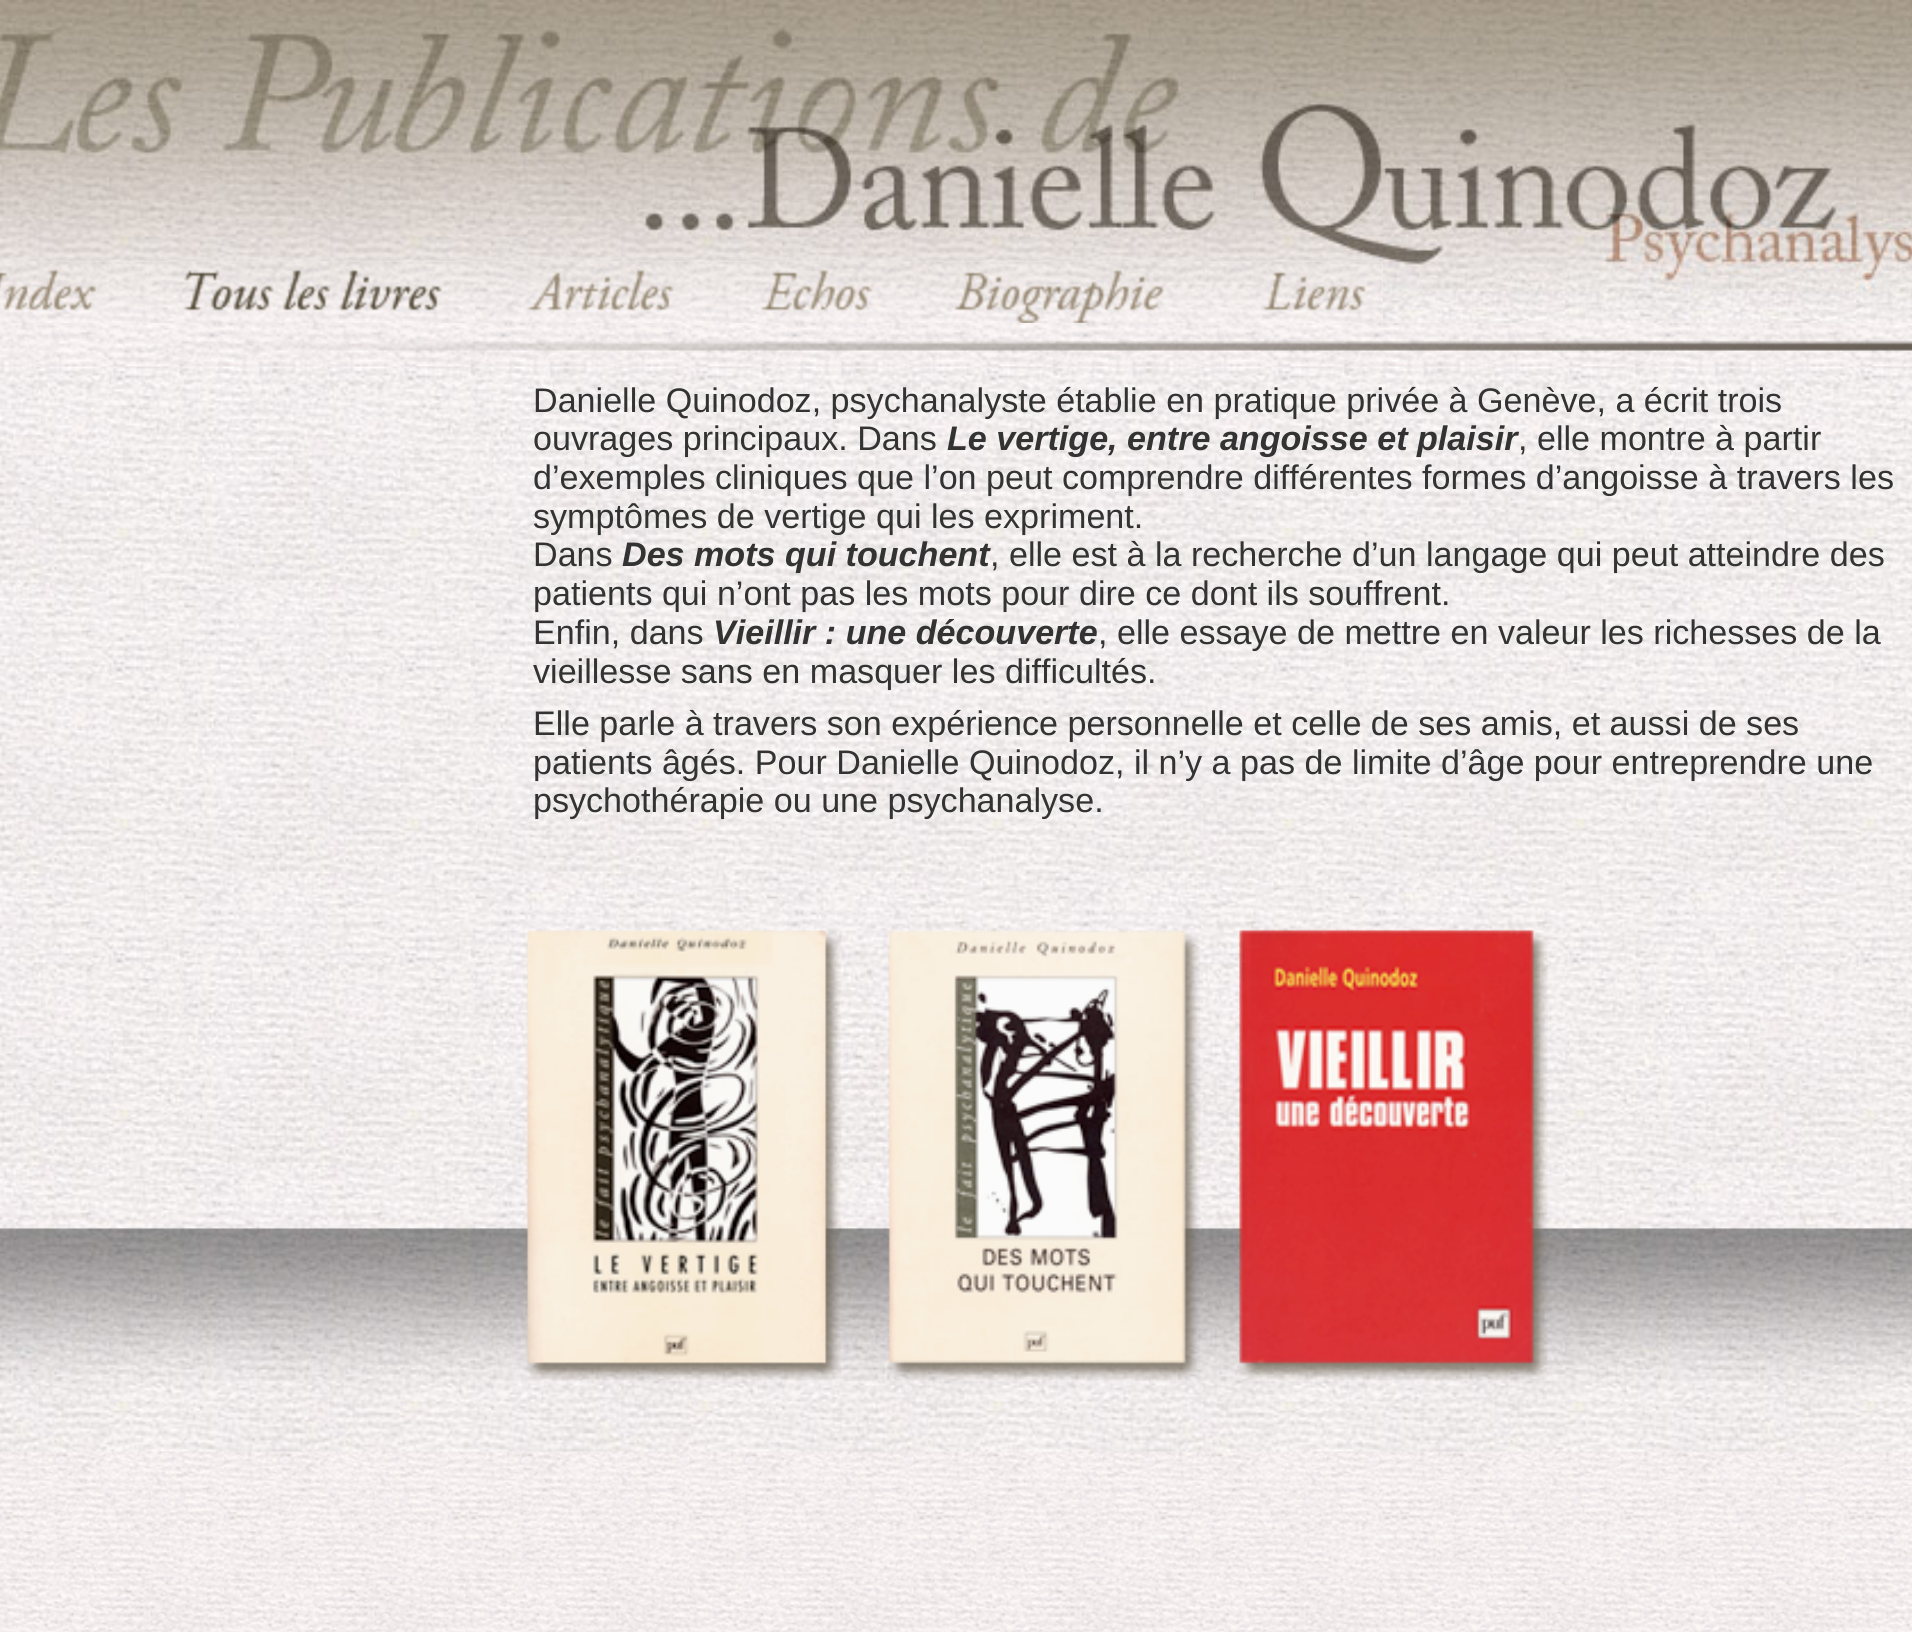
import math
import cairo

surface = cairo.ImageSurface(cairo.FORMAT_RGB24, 1912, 1632)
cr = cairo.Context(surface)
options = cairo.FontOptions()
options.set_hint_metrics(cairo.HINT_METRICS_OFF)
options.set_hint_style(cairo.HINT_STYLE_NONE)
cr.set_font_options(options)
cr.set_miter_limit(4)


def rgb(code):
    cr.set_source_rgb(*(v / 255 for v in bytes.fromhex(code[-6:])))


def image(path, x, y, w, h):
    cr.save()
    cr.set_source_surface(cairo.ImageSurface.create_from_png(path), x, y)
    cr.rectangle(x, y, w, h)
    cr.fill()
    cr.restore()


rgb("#ffffff")
cr.paint()
image("img/1.png", 0, 1451, 1912, 181)
image("img/2.png", 0, 0, 1912, 1452)
image("img/3.png", 0, 261, 1383, 62)
image("img/4.png", 0, 261, 148, 63)
image("img/5.png", 147, 261, 329, 63)
image("img/6.png", 475, 261, 237, 63)
image("img/7.png", 711, 261, 204, 63)
image("img/8.png", 914, 261, 292, 63)
image("img/9.png", 1205, 261, 178, 63)
image("img/10.png", 0, 323, 1912, 44)
image("img/11.png", 526, 930, 315, 450)
image("img/12.png", 888, 930, 312, 450)
image("img/13.png", 1239, 929, 309, 451)
cr.select_font_face("Liberation Sans")
cr.set_font_size(34.1)
rgb("#333333")
cr.move_to(533, 412)
cr.show_text("Danielle Quinodoz, psychanalyste établie en pratique privée à Genève, a écrit trois")
cr.move_to(533, 450)
cr.show_text("ouvrages principaux. Dans")
cr.select_font_face("Liberation Sans", cairo.FONT_SLANT_ITALIC, cairo.FONT_WEIGHT_BOLD)
cr.move_to(947, 450)
cr.show_text("Le vertige, entre angoisse et plaisir")
cr.select_font_face("Liberation Sans")
for x, y, s in [
    (1518, 450, ", elle montre à partir"),
    (533, 489, "d’exemples cliniques que l’on peut comprendre différentes formes d’angoisse à travers les"),
    (533, 528, "symptômes de vertige qui les expriment."),
    (533, 566, "Dans"),
]:
    cr.move_to(x, y)
    cr.show_text(s)
cr.select_font_face("Liberation Sans", cairo.FONT_SLANT_ITALIC, cairo.FONT_WEIGHT_BOLD)
cr.move_to(622, 566)
cr.show_text("Des mots qui touchent")
cr.select_font_face("Liberation Sans")
for x, y, s in [
    (990, 566, ", elle est à la recherche d’un langage qui peut atteindre des"),
    (533, 605, "patients qui n’ont pas les mots pour dire ce dont ils souffrent."),
    (533, 644, "Enfin, dans"),
]:
    cr.move_to(x, y)
    cr.show_text(s)
cr.select_font_face("Liberation Sans", cairo.FONT_SLANT_ITALIC, cairo.FONT_WEIGHT_BOLD)
cr.move_to(713, 644)
cr.show_text("Vieillir : une découverte")
cr.select_font_face("Liberation Sans")
for x, y, s in [
    (1098, 644, ", elle essaye de mettre en valeur les richesses de la"),
    (533, 683, "vieillesse sans en masquer les difficultés."),
    (533, 735, "Elle parle à travers son expérience personnelle et celle de ses amis, et aussi de ses"),
    (533, 774, "patients âgés. Pour Danielle Quinodoz, il n’y a pas de limite d’âge pour entreprendre une"),
    (533, 812, "psychothérapie ou une psychanalyse."),
]:
    cr.move_to(x, y)
    cr.show_text(s)
surface.write_to_png("page.png")
